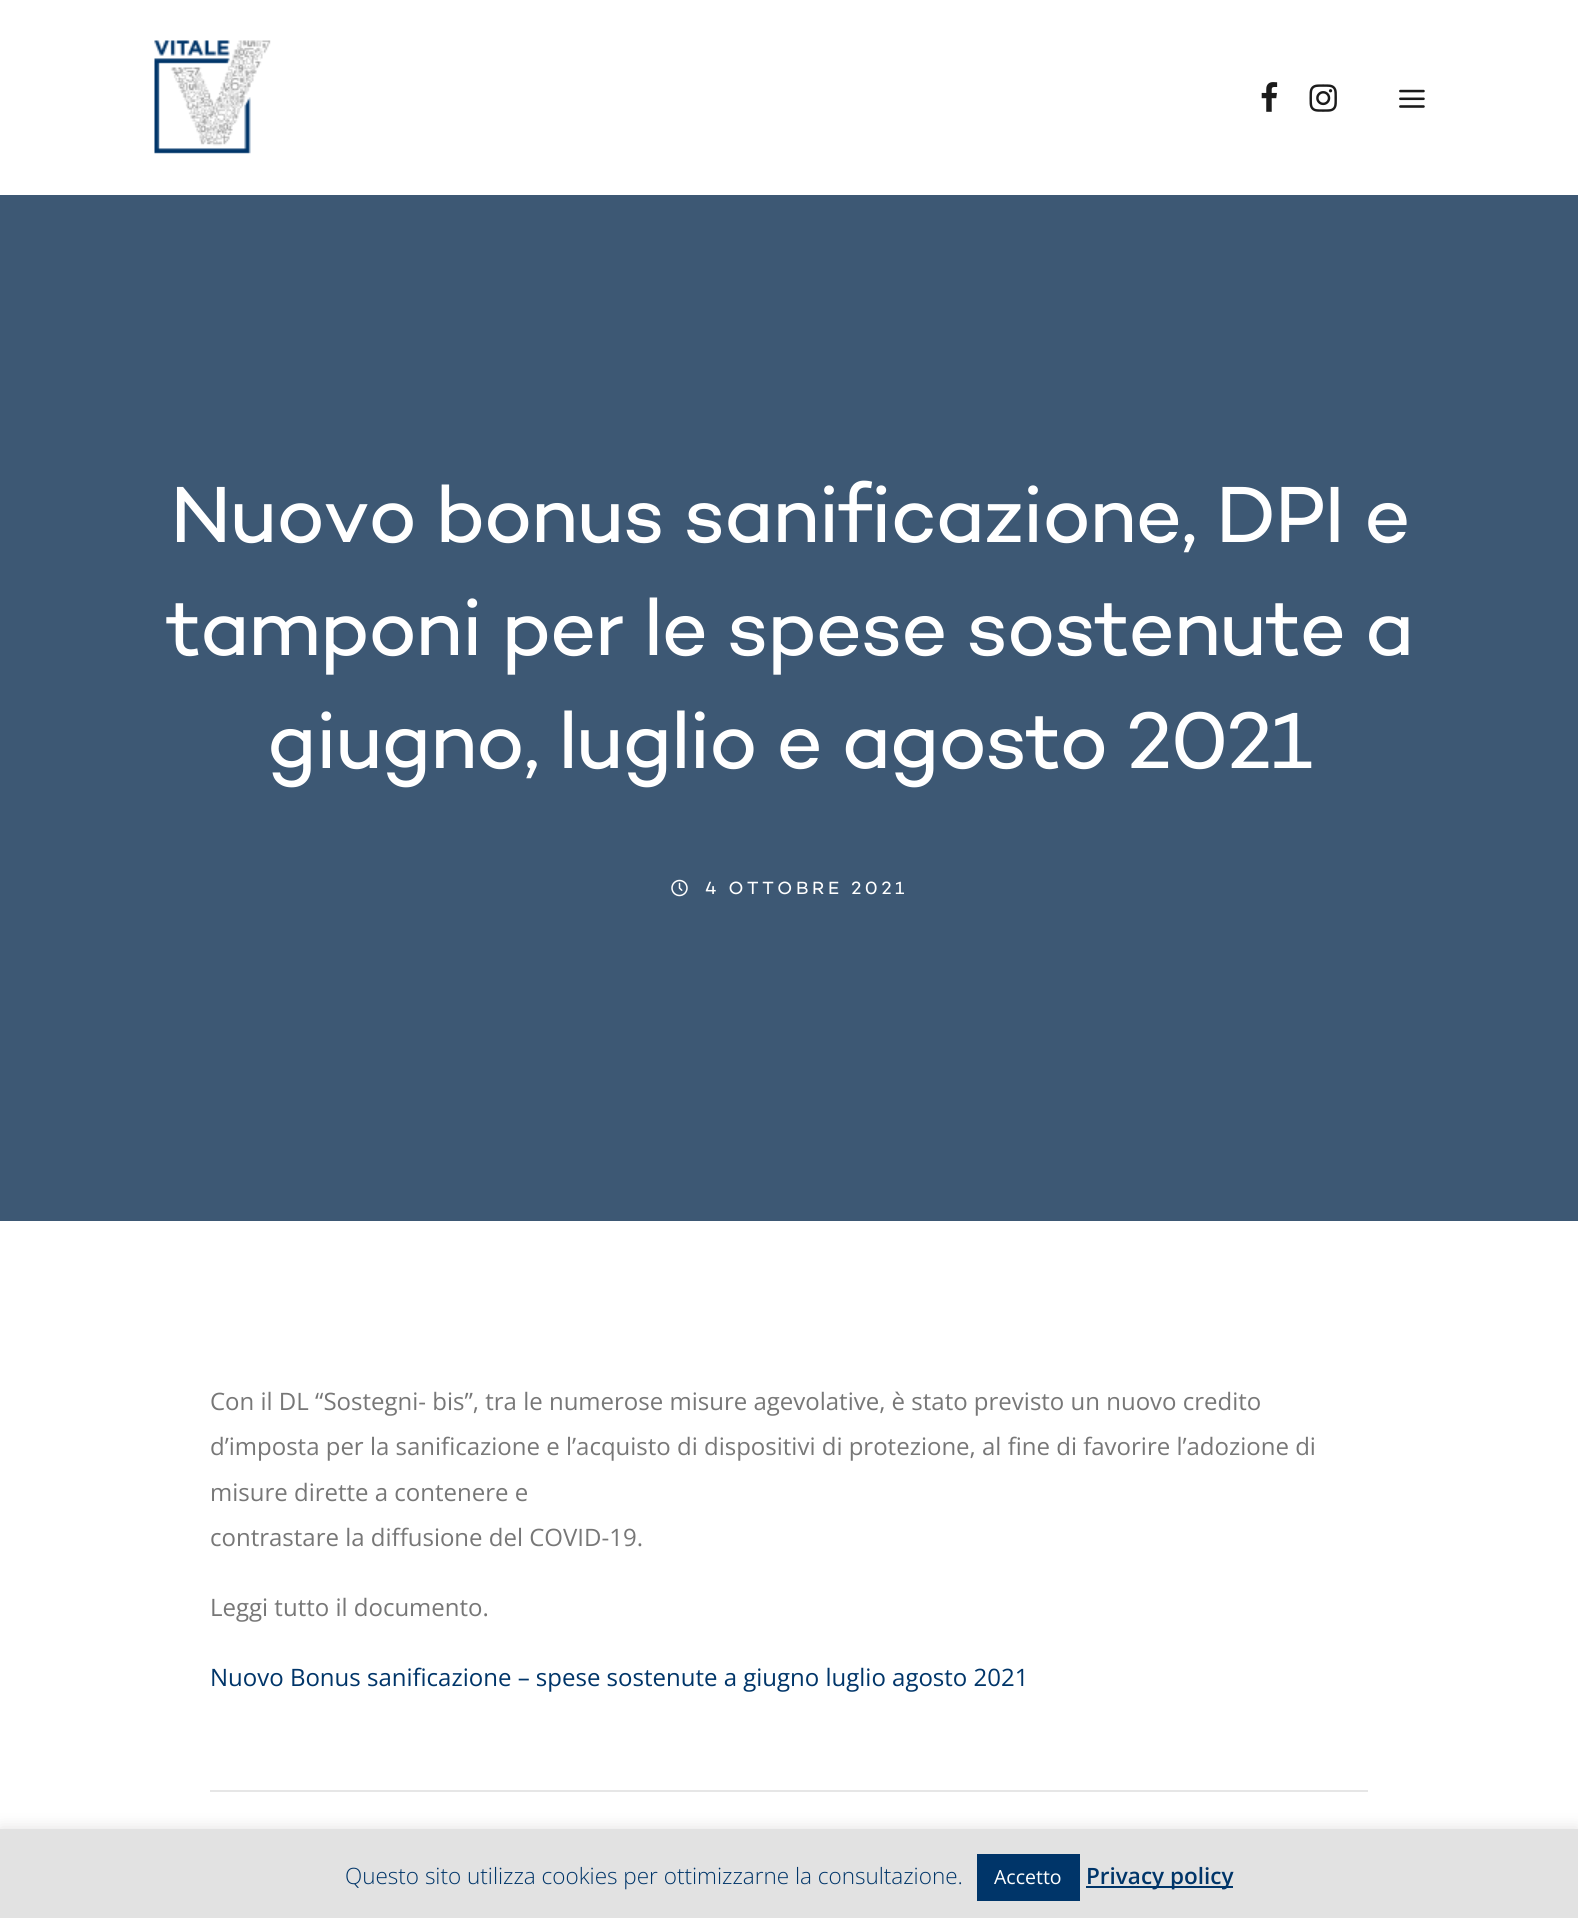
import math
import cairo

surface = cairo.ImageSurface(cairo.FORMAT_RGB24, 1578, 1918)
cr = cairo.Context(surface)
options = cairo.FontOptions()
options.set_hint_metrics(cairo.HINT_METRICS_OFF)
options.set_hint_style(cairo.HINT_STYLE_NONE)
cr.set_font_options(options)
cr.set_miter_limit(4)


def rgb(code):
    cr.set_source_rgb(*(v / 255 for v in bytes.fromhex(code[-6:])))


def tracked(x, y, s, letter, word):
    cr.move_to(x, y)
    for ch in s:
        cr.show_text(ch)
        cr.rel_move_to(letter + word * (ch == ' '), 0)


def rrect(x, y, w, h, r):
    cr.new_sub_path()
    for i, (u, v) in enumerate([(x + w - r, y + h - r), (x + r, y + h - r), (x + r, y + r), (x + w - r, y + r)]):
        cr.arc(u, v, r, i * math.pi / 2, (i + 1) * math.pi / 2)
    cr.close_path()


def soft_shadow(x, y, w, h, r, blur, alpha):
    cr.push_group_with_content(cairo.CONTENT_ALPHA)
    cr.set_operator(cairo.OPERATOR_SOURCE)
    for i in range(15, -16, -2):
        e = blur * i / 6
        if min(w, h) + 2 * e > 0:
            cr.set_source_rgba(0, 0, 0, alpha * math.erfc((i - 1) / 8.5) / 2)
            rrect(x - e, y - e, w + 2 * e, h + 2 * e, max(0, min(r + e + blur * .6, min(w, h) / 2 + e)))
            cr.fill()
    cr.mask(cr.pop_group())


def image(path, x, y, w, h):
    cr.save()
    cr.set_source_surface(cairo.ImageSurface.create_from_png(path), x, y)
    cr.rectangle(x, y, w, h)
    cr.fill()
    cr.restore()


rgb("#ffffff")
cr.paint()
image("img/1.png", 154, 40, 117, 114)
image("img/2.png", 1261, 82, 17, 30)
image("img/3.png", 1309, 84, 28, 28)
image("img/4.png", 1399, 89, 26, 19)
rgb("#3d5874")
cr.rectangle(0, 195, 1578, 1026)
cr.fill()
image("img/5.png", 671, 879, 17, 18)
rgb("#e6e6e6")
cr.rectangle(210, 1790, 1158, 2)
cr.fill()
rgb("#acabab")
soft_shadow(0, 1827, 1578, 90, 0, 7.5, 0.3)
for x, y, w, h, color in [
    (0, 1829, 1578, 89, "#e2e2e2"),
    (977, 1854, 103, 47, "#003569"),
    (1086, 1886, 147, 2, "#003569"),
]:
    rgb(color)
    cr.rectangle(x, y, w, h)
    cr.fill()
cr.select_font_face("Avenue")
cr.set_font_size(81)
rgb("#ffffff")
for x, y, s in [
    (170, 542, "Nuovo bonus sanificazione, DPI e"),
    (166, 655, "tamponi per le spese sostenute a"),
    (267, 768, "giugno, luglio e agosto 2021"),
]:
    tracked(x, y, s, -1.6, 0)
cr.set_font_size(18)
tracked(705, 894, "4 OTTOBRE 2021", 3.6, 0)
cr.select_font_face("Open Sans")
cr.set_font_size(24)
rgb("#777777")
for x, y, s in [
    (210, 1410, "Con il DL “Sostegni- bis”, tra le numerose misure agevolative, è stato previsto un nuovo credito"),
    (210, 1455, "d’imposta per la sanificazione e l’acquisto di dispositivi di protezione, al fine di favorire l’adozione di"),
    (210, 1501, "misure dirette a contenere e"),
    (210, 1546, "contrastare la diffusione del COVID-19."),
    (210, 1616, "Leggi tutto il documento."),
]:
    cr.move_to(x, y)
    cr.show_text(s)
rgb("#003569")
cr.move_to(210, 1686)
cr.show_text("Nuovo Bonus sanificazione – spese sostenute a giugno luglio agosto 2021")
cr.select_font_face("Open Sans Light")
cr.set_font_size(22.5)
cr.move_to(345, 1884)
cr.show_text("Questo sito utilizza cookies per ottimizzarne la consultazione.")
cr.select_font_face("Open Sans")
cr.set_font_size(19.5)
rgb("#ffffff")
cr.move_to(994, 1884)
cr.show_text("Accetto")
cr.select_font_face("Open Sans SemiBold")
cr.set_font_size(22.5)
rgb("#003569")
cr.move_to(1086, 1884)
cr.show_text("Privacy policy")
surface.write_to_png("page.png")
